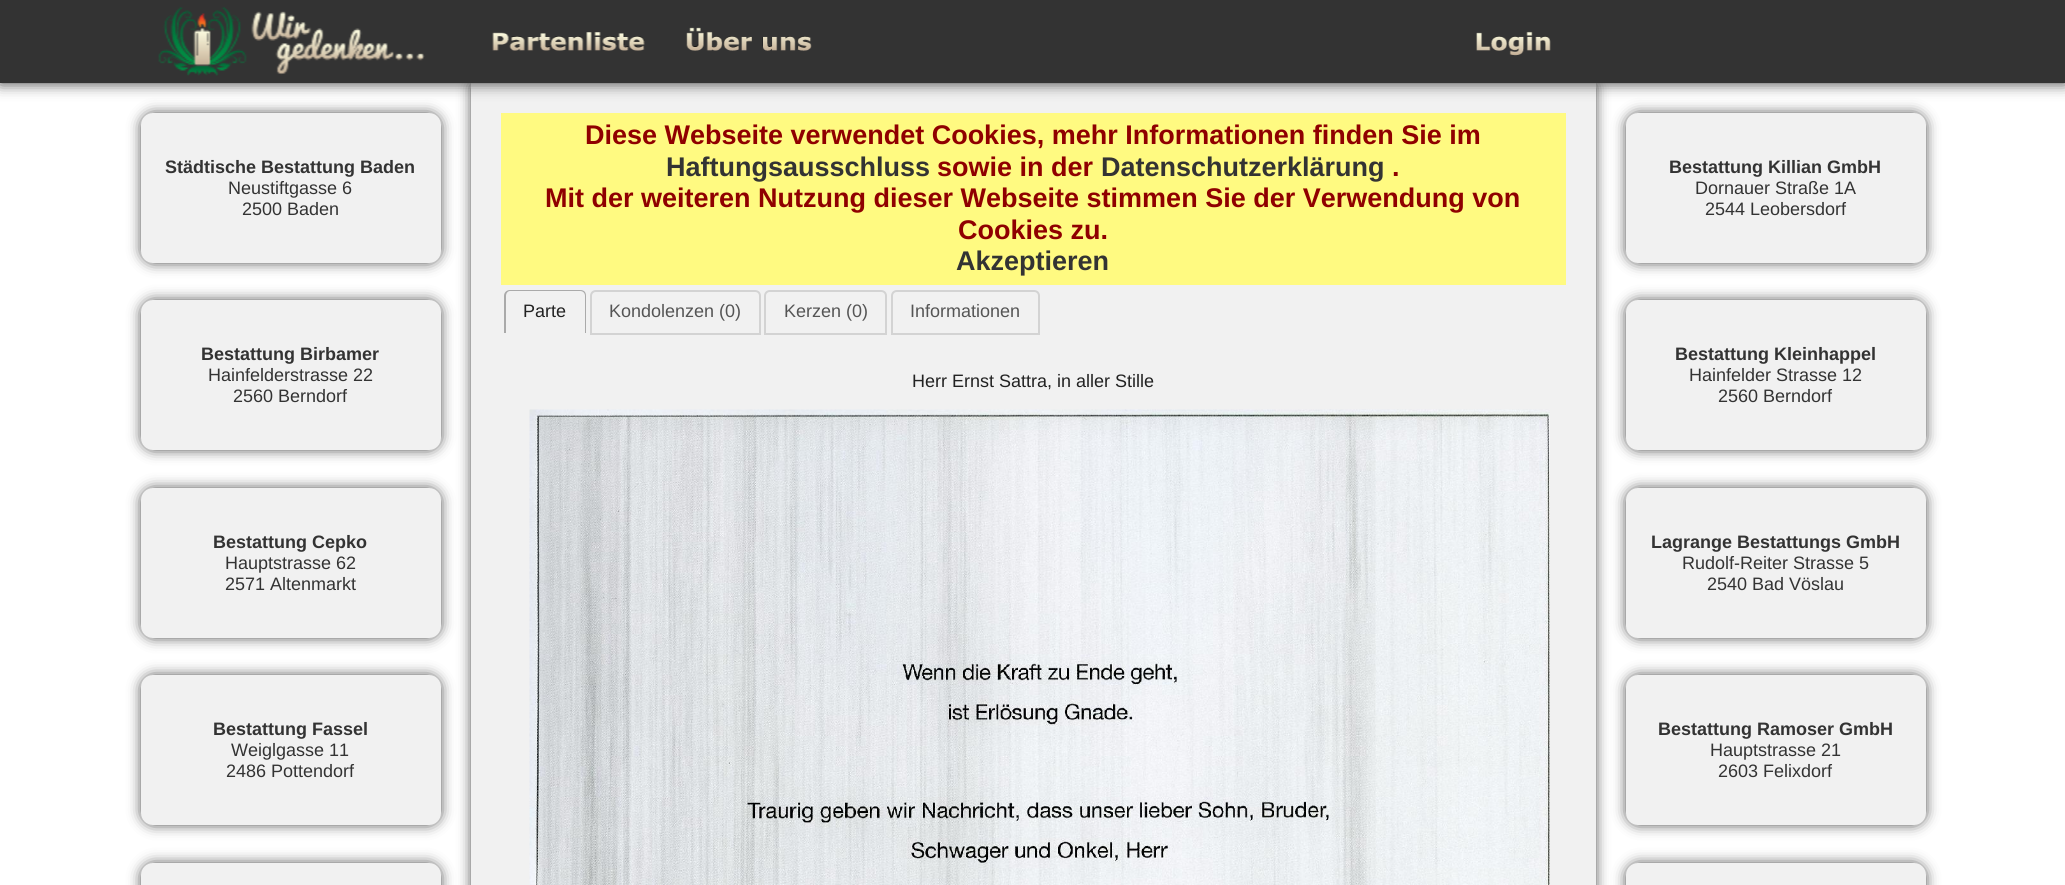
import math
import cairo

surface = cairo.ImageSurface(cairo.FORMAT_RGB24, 2065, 885)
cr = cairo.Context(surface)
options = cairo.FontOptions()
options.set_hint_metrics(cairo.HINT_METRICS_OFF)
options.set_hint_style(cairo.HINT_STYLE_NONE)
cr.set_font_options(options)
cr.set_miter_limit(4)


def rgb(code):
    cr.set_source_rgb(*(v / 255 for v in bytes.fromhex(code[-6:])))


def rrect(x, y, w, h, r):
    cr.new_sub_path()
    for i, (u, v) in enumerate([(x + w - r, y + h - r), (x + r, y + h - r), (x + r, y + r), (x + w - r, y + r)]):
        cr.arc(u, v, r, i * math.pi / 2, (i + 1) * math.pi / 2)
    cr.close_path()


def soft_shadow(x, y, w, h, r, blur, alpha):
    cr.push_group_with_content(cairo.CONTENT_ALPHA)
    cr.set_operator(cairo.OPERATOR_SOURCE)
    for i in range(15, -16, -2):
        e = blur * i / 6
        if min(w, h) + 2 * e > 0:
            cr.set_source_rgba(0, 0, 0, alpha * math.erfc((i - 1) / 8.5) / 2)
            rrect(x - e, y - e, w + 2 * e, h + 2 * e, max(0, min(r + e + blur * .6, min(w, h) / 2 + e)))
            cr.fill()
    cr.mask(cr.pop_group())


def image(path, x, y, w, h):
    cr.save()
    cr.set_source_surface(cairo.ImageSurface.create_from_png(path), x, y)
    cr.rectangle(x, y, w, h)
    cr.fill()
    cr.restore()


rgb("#ffffff")
cr.paint()
rgb("#000000")
soft_shadow(474, 86, 1119, 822, 0, 7.5, 1)
rgb("#f1f1f1")
cr.rectangle(471, 83, 1125, 802)
cr.fill()
rgb("#333333")
soft_shadow(0, 0, 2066, 83, 0, 7.5, 1)
rgb("#333333")
cr.rectangle(0, 0, 2065, 83)
cr.fill()
image("img/1.png", 158, 7, 267, 69)
image("img/2.png", 492, 32, 153, 19)
image("img/3.png", 686, 27, 126, 24)
image("img/4.png", 1476, 31, 75, 25)
rgb("#fffa81")
cr.rectangle(501, 113, 1065, 172)
cr.fill()
rgb("#aaaaaa")
cr.set_fill_rule(cairo.FILL_RULE_EVEN_ODD)
cr.new_path()
cr.move_to(510, 290)
cr.line_to(580, 290)
cr.curve_to(584, 290, 586, 292, 586, 296)
cr.line_to(586, 333)
cr.line_to(504, 333)
cr.line_to(504, 296)
cr.curve_to(504, 292, 507, 290, 510, 290)
cr.close_path()
cr.move_to(510, 291)
cr.line_to(580, 291)
cr.curve_to(583, 291, 585, 293, 585, 296)
cr.line_to(585, 333)
cr.line_to(506, 333)
cr.line_to(506, 296)
cr.curve_to(506, 293, 508, 291, 510, 291)
cr.close_path()
cr.fill()
cr.new_path()
cr.move_to(596, 291)
cr.line_to(755, 291)
cr.curve_to(758, 291, 760, 293, 760, 296)
cr.line_to(760, 334)
cr.line_to(591, 334)
cr.line_to(591, 296)
cr.curve_to(591, 293, 593, 291, 596, 291)
cr.close_path()
rgb("#d3d3d3")
cr.stroke()
cr.new_path()
cr.move_to(770, 291)
cr.line_to(881, 291)
cr.curve_to(884, 291, 886, 293, 886, 296)
cr.line_to(886, 334)
cr.line_to(765, 334)
cr.line_to(765, 296)
cr.curve_to(765, 293, 767, 291, 770, 291)
cr.close_path()
cr.stroke()
cr.new_path()
cr.move_to(897, 291)
cr.line_to(1034, 291)
cr.curve_to(1037, 291, 1039, 293, 1039, 296)
cr.line_to(1039, 334)
cr.line_to(892, 334)
cr.line_to(892, 296)
cr.curve_to(892, 293, 894, 291, 897, 291)
cr.close_path()
cr.stroke()
image("img/5.png", 529, 409, 1021, 476)
rgb("#000000")
soft_shadow(144, 116, 294, 144, 9, 7.5, 1)
rgb("#f1f1f1")
rrect(141, 113, 300, 150, 12)
cr.fill()
rgb("#000000")
soft_shadow(144, 303, 294, 144, 9, 7.5, 1)
rgb("#f1f1f1")
rrect(141, 300, 300, 150, 12)
cr.fill()
rgb("#000000")
soft_shadow(144, 491, 294, 144, 9, 7.5, 1)
rgb("#f1f1f1")
rrect(141, 488, 300, 150, 12)
cr.fill()
rgb("#000000")
soft_shadow(144, 678, 294, 144, 9, 7.5, 1)
rgb("#f1f1f1")
rrect(141, 675, 300, 150, 12)
cr.fill()
rgb("#000000")
soft_shadow(144, 866, 294, 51, 9, 7.5, 1)
rgb("#f1f1f1")
rrect(141, 863, 300, 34, 12)
cr.fill()
rgb("#000000")
soft_shadow(1629, 116, 294, 144, 9, 7.5, 1)
rgb("#f1f1f1")
rrect(1626, 113, 300, 150, 12)
cr.fill()
rgb("#000000")
soft_shadow(1629, 303, 294, 144, 9, 7.5, 1)
rgb("#f1f1f1")
rrect(1626, 300, 300, 150, 12)
cr.fill()
rgb("#000000")
soft_shadow(1629, 491, 294, 144, 9, 7.5, 1)
rgb("#f1f1f1")
rrect(1626, 488, 300, 150, 12)
cr.fill()
rgb("#000000")
soft_shadow(1629, 678, 294, 144, 9, 7.5, 1)
rgb("#f1f1f1")
rrect(1626, 675, 300, 150, 12)
cr.fill()
rgb("#000000")
soft_shadow(1629, 866, 294, 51, 9, 7.5, 1)
rgb("#f1f1f1")
rrect(1626, 863, 300, 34, 12)
cr.fill()
cr.select_font_face("Liberation Sans", cairo.FONT_SLANT_NORMAL, cairo.FONT_WEIGHT_BOLD)
cr.set_font_size(27)
rgb("#8f0000")
cr.move_to(585, 144)
cr.show_text("Diese Webseite verwendet Cookies, mehr Informationen finden Sie im")
rgb("#333333")
cr.move_to(666, 176)
cr.show_text("Haftungsausschluss")
rgb("#8f0000")
cr.move_to(937, 176)
cr.show_text("sowie in der")
rgb("#333333")
cr.move_to(1101, 176)
cr.show_text("Datenschutzerklärung")
rgb("#8f0000")
for x, y, s in [
    (1392, 176, "."),
    (545, 207, "Mit der weiteren Nutzung dieser Webseite stimmen Sie der Verwendung von"),
    (958, 239, "Cookies zu."),
]:
    cr.move_to(x, y)
    cr.show_text(s)
rgb("#333333")
cr.move_to(956, 270)
cr.show_text("Akzeptieren")
cr.select_font_face("Liberation Sans")
cr.set_font_size(18)
rgb("#222222")
cr.move_to(523, 317)
cr.show_text("Parte")
rgb("#555555")
for x, y, s in [
    (609, 317, "Kondolenzen (0)"),
    (784, 317, "Kerzen (0)"),
    (910, 317, "Informationen"),
]:
    cr.move_to(x, y)
    cr.show_text(s)
rgb("#222222")
cr.move_to(912, 387)
cr.show_text("Herr Ernst Sattra, in aller Stille")
cr.select_font_face("Liberation Sans", cairo.FONT_SLANT_NORMAL, cairo.FONT_WEIGHT_BOLD)
rgb("#333333")
cr.move_to(165, 173)
cr.show_text("Städtische Bestattung Baden")
cr.select_font_face("Liberation Sans")
cr.move_to(228, 194)
cr.show_text("Neustiftgasse 6")
cr.move_to(242, 215)
cr.show_text("2500 Baden")
cr.select_font_face("Liberation Sans", cairo.FONT_SLANT_NORMAL, cairo.FONT_WEIGHT_BOLD)
cr.move_to(201, 360)
cr.show_text("Bestattung Birbamer")
cr.select_font_face("Liberation Sans")
cr.move_to(208, 381)
cr.show_text("Hainfelderstrasse 22")
cr.move_to(233, 402)
cr.show_text("2560 Berndorf")
cr.select_font_face("Liberation Sans", cairo.FONT_SLANT_NORMAL, cairo.FONT_WEIGHT_BOLD)
cr.move_to(213, 548)
cr.show_text("Bestattung Cepko")
cr.select_font_face("Liberation Sans")
cr.move_to(225, 569)
cr.show_text("Hauptstrasse 62")
cr.move_to(225, 590)
cr.show_text("2571 Altenmarkt")
cr.select_font_face("Liberation Sans", cairo.FONT_SLANT_NORMAL, cairo.FONT_WEIGHT_BOLD)
cr.move_to(213, 735)
cr.show_text("Bestattung Fassel")
cr.select_font_face("Liberation Sans")
cr.move_to(231, 756)
cr.show_text("Weiglgasse 11")
cr.move_to(226, 777)
cr.show_text("2486 Pottendorf")
cr.select_font_face("Liberation Sans", cairo.FONT_SLANT_NORMAL, cairo.FONT_WEIGHT_BOLD)
cr.move_to(1669, 173)
cr.show_text("Bestattung Killian GmbH")
cr.select_font_face("Liberation Sans")
cr.move_to(1695, 194)
cr.show_text("Dornauer Straße 1A")
cr.move_to(1705, 215)
cr.show_text("2544 Leobersdorf")
cr.select_font_face("Liberation Sans", cairo.FONT_SLANT_NORMAL, cairo.FONT_WEIGHT_BOLD)
cr.move_to(1675, 360)
cr.show_text("Bestattung Kleinhappel")
cr.select_font_face("Liberation Sans")
cr.move_to(1689, 381)
cr.show_text("Hainfelder Strasse 12")
cr.move_to(1718, 402)
cr.show_text("2560 Berndorf")
cr.select_font_face("Liberation Sans", cairo.FONT_SLANT_NORMAL, cairo.FONT_WEIGHT_BOLD)
cr.move_to(1651, 548)
cr.show_text("Lagrange Bestattungs GmbH")
cr.select_font_face("Liberation Sans")
cr.move_to(1682, 569)
cr.show_text("Rudolf-Reiter Strasse 5")
cr.move_to(1707, 590)
cr.show_text("2540 Bad Vöslau")
cr.select_font_face("Liberation Sans", cairo.FONT_SLANT_NORMAL, cairo.FONT_WEIGHT_BOLD)
cr.move_to(1658, 735)
cr.show_text("Bestattung Ramoser GmbH")
cr.select_font_face("Liberation Sans")
cr.move_to(1710, 756)
cr.show_text("Hauptstrasse 21")
cr.move_to(1718, 777)
cr.show_text("2603 Felixdorf")
surface.write_to_png("page.png")
